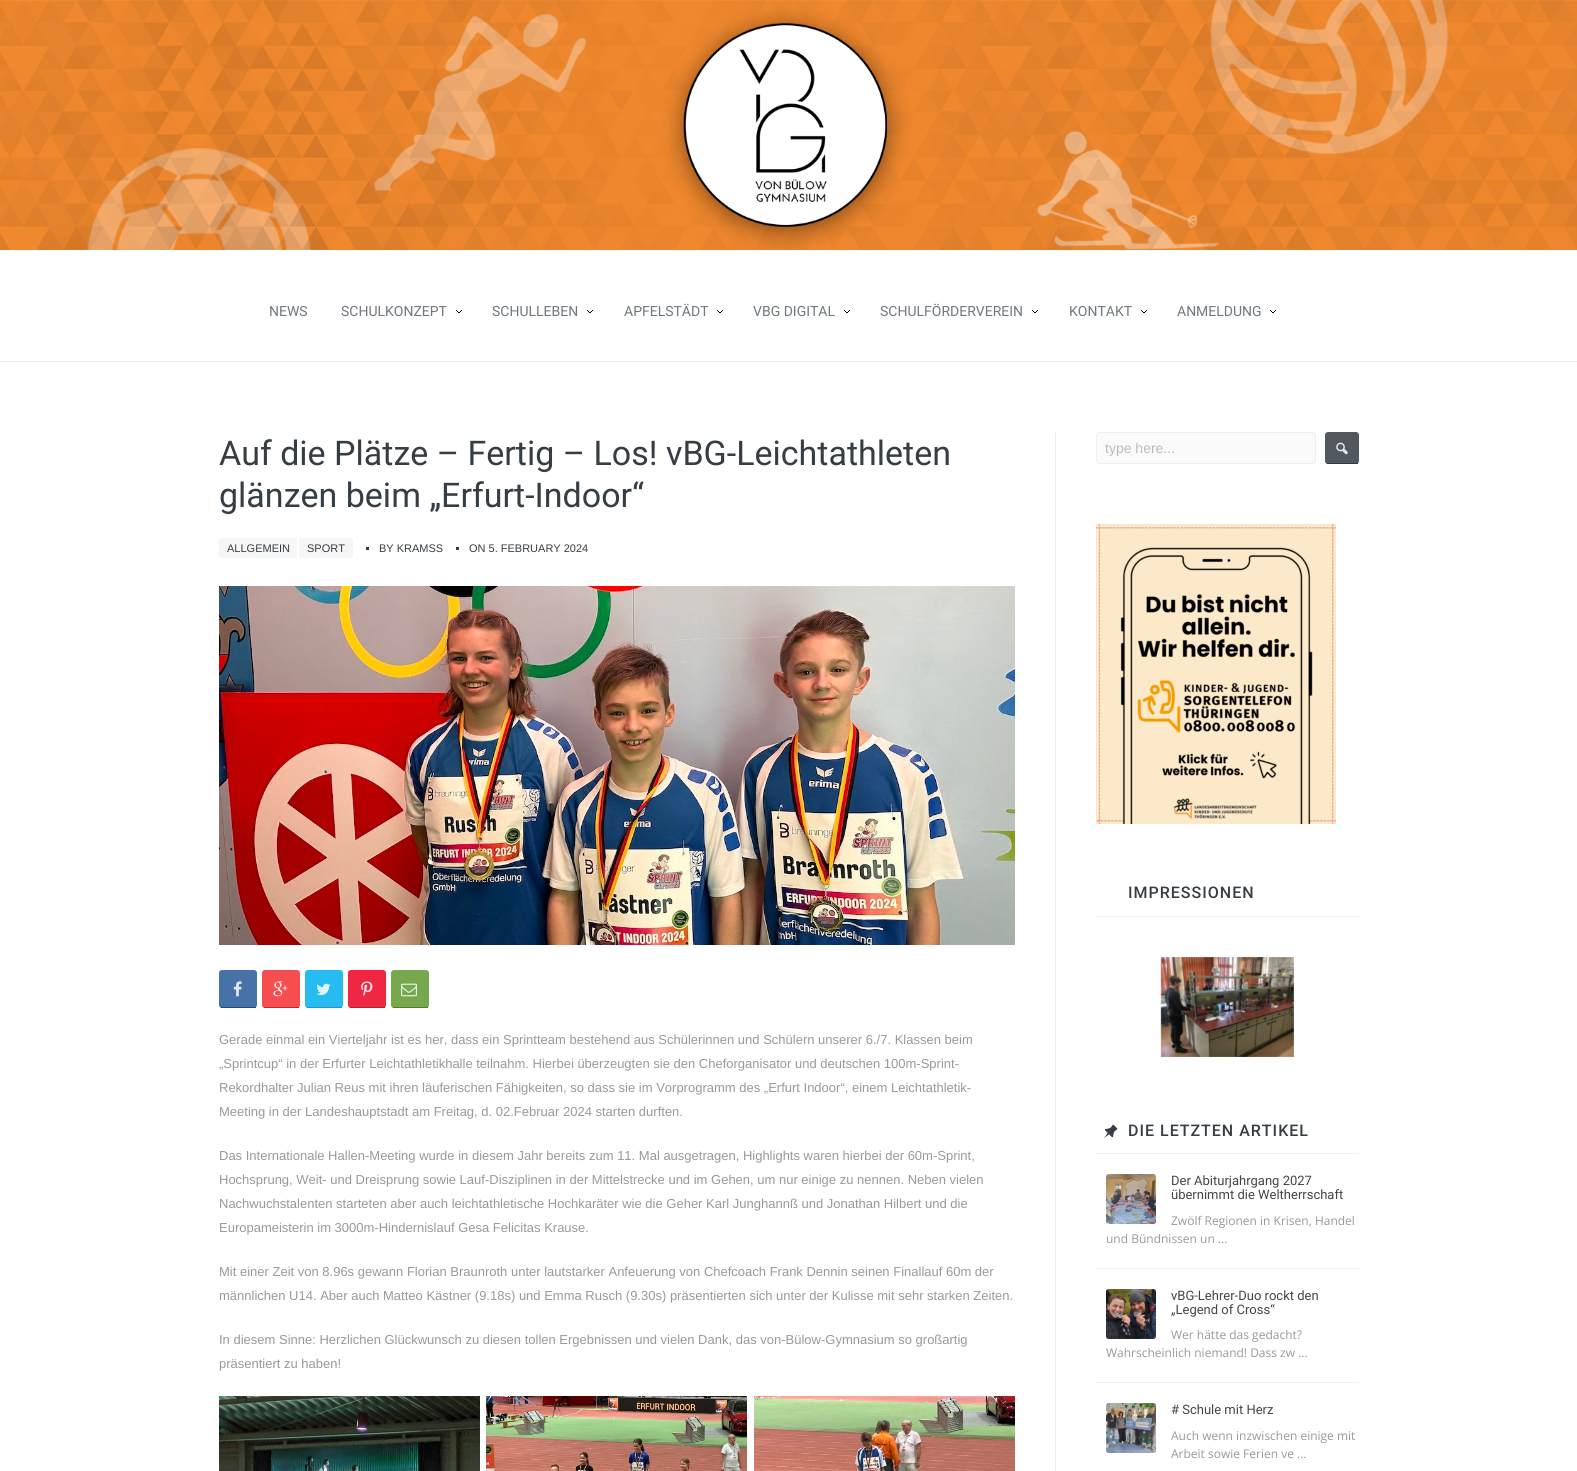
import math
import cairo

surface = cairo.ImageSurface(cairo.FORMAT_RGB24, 1577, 1471)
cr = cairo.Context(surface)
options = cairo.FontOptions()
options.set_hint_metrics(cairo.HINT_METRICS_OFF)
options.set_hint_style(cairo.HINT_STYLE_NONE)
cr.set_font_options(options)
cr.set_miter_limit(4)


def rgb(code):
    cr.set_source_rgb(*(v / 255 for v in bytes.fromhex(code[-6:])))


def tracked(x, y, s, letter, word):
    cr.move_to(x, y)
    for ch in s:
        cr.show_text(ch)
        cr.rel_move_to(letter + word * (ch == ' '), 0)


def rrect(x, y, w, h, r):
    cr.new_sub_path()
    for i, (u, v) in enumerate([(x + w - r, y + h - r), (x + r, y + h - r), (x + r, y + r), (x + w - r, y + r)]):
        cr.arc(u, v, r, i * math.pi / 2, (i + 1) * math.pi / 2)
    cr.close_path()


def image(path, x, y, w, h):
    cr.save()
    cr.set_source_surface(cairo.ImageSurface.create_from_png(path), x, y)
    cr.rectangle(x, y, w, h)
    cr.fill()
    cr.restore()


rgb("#ffffff")
cr.paint()
image("img/1.png", 0, 0, 1577, 250)
rgb("#ededed")
cr.rectangle(0, 361, 1577, 1)
cr.fill()
image("img/2.png", 456, 310, 6, 3)
image("img/2.png", 587, 310, 6, 3)
image("img/2.png", 717, 310, 6, 3)
image("img/2.png", 844, 310, 6, 3)
image("img/2.png", 1032, 310, 6, 3)
image("img/2.png", 1141, 310, 6, 3)
image("img/2.png", 1270, 310, 6, 3)
rgb("#eeeeee")
cr.rectangle(1055, 432, 1, 1039)
cr.fill()
rgb("#f6f6f6")
rrect(219, 538, 78, 20, 3)
cr.fill()
rrect(299, 538, 54, 20, 3)
cr.fill()
rgb("#343b43")
cr.rectangle(366, 547, 3, 3)
cr.fill()
cr.rectangle(456, 547, 3, 3)
cr.fill()
image("img/3.png", 219, 586, 796, 359)
rgb("#4772a8")
rrect(219, 970, 38, 38, 3)
cr.fill()
rgb("#26477e")
cr.rectangle(221, 1007, 35, 1)
cr.fill()
image("img/4.png", 233, 981, 9, 16)
rgb("#f54d50")
rrect(262, 970, 38, 38, 3)
cr.fill()
rgb("#ca2626")
cr.rectangle(264, 1007, 35, 1)
cr.fill()
image("img/5.png", 273, 981, 15, 16)
rgb("#26bcf1")
rrect(305, 970, 38, 38, 3)
cr.fill()
rgb("#2691c7")
cr.rectangle(307, 1007, 35, 1)
cr.fill()
image("img/6.png", 316, 983, 15, 13)
rgb("#f12642")
rrect(348, 970, 38, 38, 3)
cr.fill()
rgb("#a92626")
cr.rectangle(350, 1007, 35, 1)
cr.fill()
image("img/7.png", 361, 981, 12, 16)
rgb("#77a84e")
rrect(391, 970, 38, 38, 3)
cr.fill()
rgb("#4d7e26")
cr.rectangle(393, 1007, 35, 1)
cr.fill()
image("img/8.png", 401, 983, 16, 14)
image("img/9.png", 219, 1396, 261, 75)
image("img/10.png", 486, 1396, 261, 75)
image("img/11.png", 754, 1396, 261, 75)
rgb("#fafafa")
rrect(1096.5, 432.5, 219, 31, 2.5)
cr.fill_preserve()
rgb("#efefef")
cr.set_line_width(1)
cr.stroke()
rgb("#52585f")
rrect(1325, 432, 34, 32, 3)
cr.fill()
rgb("#30363d")
cr.rectangle(1327, 463, 31, 1)
cr.fill()
image("img/12.png", 1336, 442, 12, 13)
image("img/13.png", 1096, 524, 240, 300)
rgb("#f2f2f2")
cr.rectangle(1096, 916, 263, 1)
cr.fill()
image("img/14.png", 1160, 957, 134, 100)
cr.rectangle(1096, 1153, 263, 1)
cr.fill()
image("img/15.png", 1104, 1124, 14, 14)
cr.rectangle(1096, 1268, 263, 1)
cr.fill()
image("img/16.png", 1106, 1174, 50, 50)
cr.rectangle(1096, 1382, 263, 1)
cr.fill()
image("img/17.png", 1106, 1289, 50, 50)
image("img/18.png", 1106, 1403, 50, 50)
cr.select_font_face("Roboto")
cr.set_font_size(14)
rgb("#70777f")
for x, y, s in [
    (269, 316, "NEWS"),
    (341, 316, "SCHULKONZEPT"),
    (492, 316, "SCHULLEBEN"),
    (624, 316, "APFELSTÄDT"),
    (753, 316, "VBG DIGITAL"),
    (880, 316, "SCHULFÖRDERVEREIN"),
    (1069, 316, "KONTAKT"),
    (1177, 316, "ANMELDUNG"),
]:
    cr.move_to(x, y)
    cr.show_text(s)
cr.set_font_size(34)
rgb("#353d45")
cr.move_to(219, 465)
cr.show_text("Auf die Plätze – Fertig – Los! vBG-Leichtathleten")
cr.move_to(219, 507)
cr.show_text("glänzen beim „Erfurt-Indoor“")
cr.select_font_face("Liberation Sans")
cr.set_font_size(11)
for x, y, s in [
    (227, 552, "ALLGEMEIN"),
    (307, 552, "SPORT"),
    (379, 552, "BY KRAMSS"),
    (469, 552, "ON 5. FEBRUARY 2024"),
]:
    cr.move_to(x, y)
    cr.show_text(s)
cr.set_font_size(13)
rgb("#999999")
for x, y, s in [
    (219, 1044, "Gerade einmal ein Vierteljahr ist es her, dass ein Sprintteam bestehend aus Schülerinnen und Schülern unserer 6./7. Klassen beim"),
    (219, 1068, "„Sprintcup“ in der Erfurter Leichtathletikhalle teilnahm. Hierbei überzeugten sie den Cheforganisator und deutschen 100m-Sprint-"),
    (219, 1092, "Rekordhalter Julian Reus mit ihren läuferischen Fähigkeiten, so dass sie im Vorprogramm des „Erfurt Indoor“, einem Leichtathletik-"),
    (219, 1116, "Meeting in der Landeshauptstadt am Freitag, d. 02.Februar 2024 starten durften."),
    (219, 1160, "Das Internationale Hallen-Meeting wurde in diesem Jahr bereits zum 11. Mal ausgetragen, Highlights waren hierbei der 60m-Sprint,"),
    (219, 1184, "Hochsprung, Weit- und Dreisprung sowie Lauf-Disziplinen in der Mittelstrecke und im Gehen, um nur einige zu nennen. Neben vielen"),
    (219, 1208, "Nachwuchstalenten starteten aber auch leichtathletische Hochkaräter wie die Geher Karl Junghannß und Jonathan Hilbert und die"),
    (219, 1232, "Europameisterin im 3000m-Hindernislauf Gesa Felicitas Krause."),
    (219, 1276, "Mit einer Zeit von 8.96s gewann Florian Braunroth unter lautstarker Anfeuerung von Chefcoach Frank Dennin seinen Finallauf 60m der"),
    (219, 1300, "männlichen U14. Aber auch Matteo Kästner (9.18s) und Emma Rusch (9.30s) präsentierten sich unter der Kulisse mit sehr starken Zeiten."),
    (219, 1344, "In diesem Sinne: Herzlichen Glückwunsch zu diesen tollen Ergebnissen und vielen Dank, das von-Bülow-Gymnasium so großartig"),
    (219, 1368, "präsentiert zu haben!"),
]:
    cr.move_to(x, y)
    cr.show_text(s)
cr.set_font_size(14)
rgb("#bcbcbc")
cr.move_to(1105, 453)
cr.show_text("type here...")
cr.select_font_face("Roboto Medium")
cr.set_font_size(16)
rgb("#353d45")
tracked(1128, 898, "IMPRESSIONEN", 1, 0)
tracked(1128, 1136, "DIE LETZTEN ARTIKEL", 1, 0)
cr.select_font_face("Roboto")
cr.set_font_size(13)
rgb("#454545")
cr.move_to(1171, 1185)
cr.show_text("Der Abiturjahrgang 2027")
cr.move_to(1171, 1199)
cr.show_text("übernimmt die Weltherrschaft")
cr.select_font_face("Open Sans")
cr.set_font_size(12)
rgb("#999999")
cr.move_to(1171, 1225)
cr.show_text("Zwölf Regionen in Krisen, Handel")
cr.move_to(1106, 1243)
cr.show_text("und Bündnissen un ...")
cr.select_font_face("Roboto")
cr.set_font_size(13)
rgb("#454545")
cr.move_to(1171, 1300)
cr.show_text("vBG-Lehrer-Duo rockt den")
cr.move_to(1171, 1314)
cr.show_text("„Legend of Cross“")
cr.select_font_face("Open Sans")
cr.set_font_size(12)
rgb("#999999")
cr.move_to(1171, 1339)
cr.show_text("Wer hätte das gedacht?")
cr.move_to(1106, 1357)
cr.show_text("Wahrscheinlich niemand! Dass zw ...")
cr.select_font_face("Roboto")
cr.set_font_size(13)
rgb("#454545")
cr.move_to(1171, 1414)
cr.show_text("# Schule mit Herz")
cr.select_font_face("Open Sans")
cr.set_font_size(12)
rgb("#999999")
cr.move_to(1171, 1440)
cr.show_text("Auch wenn inzwischen einige mit")
cr.move_to(1171, 1458)
cr.show_text("Arbeit sowie Ferien ve ...")
surface.write_to_png("page.png")
